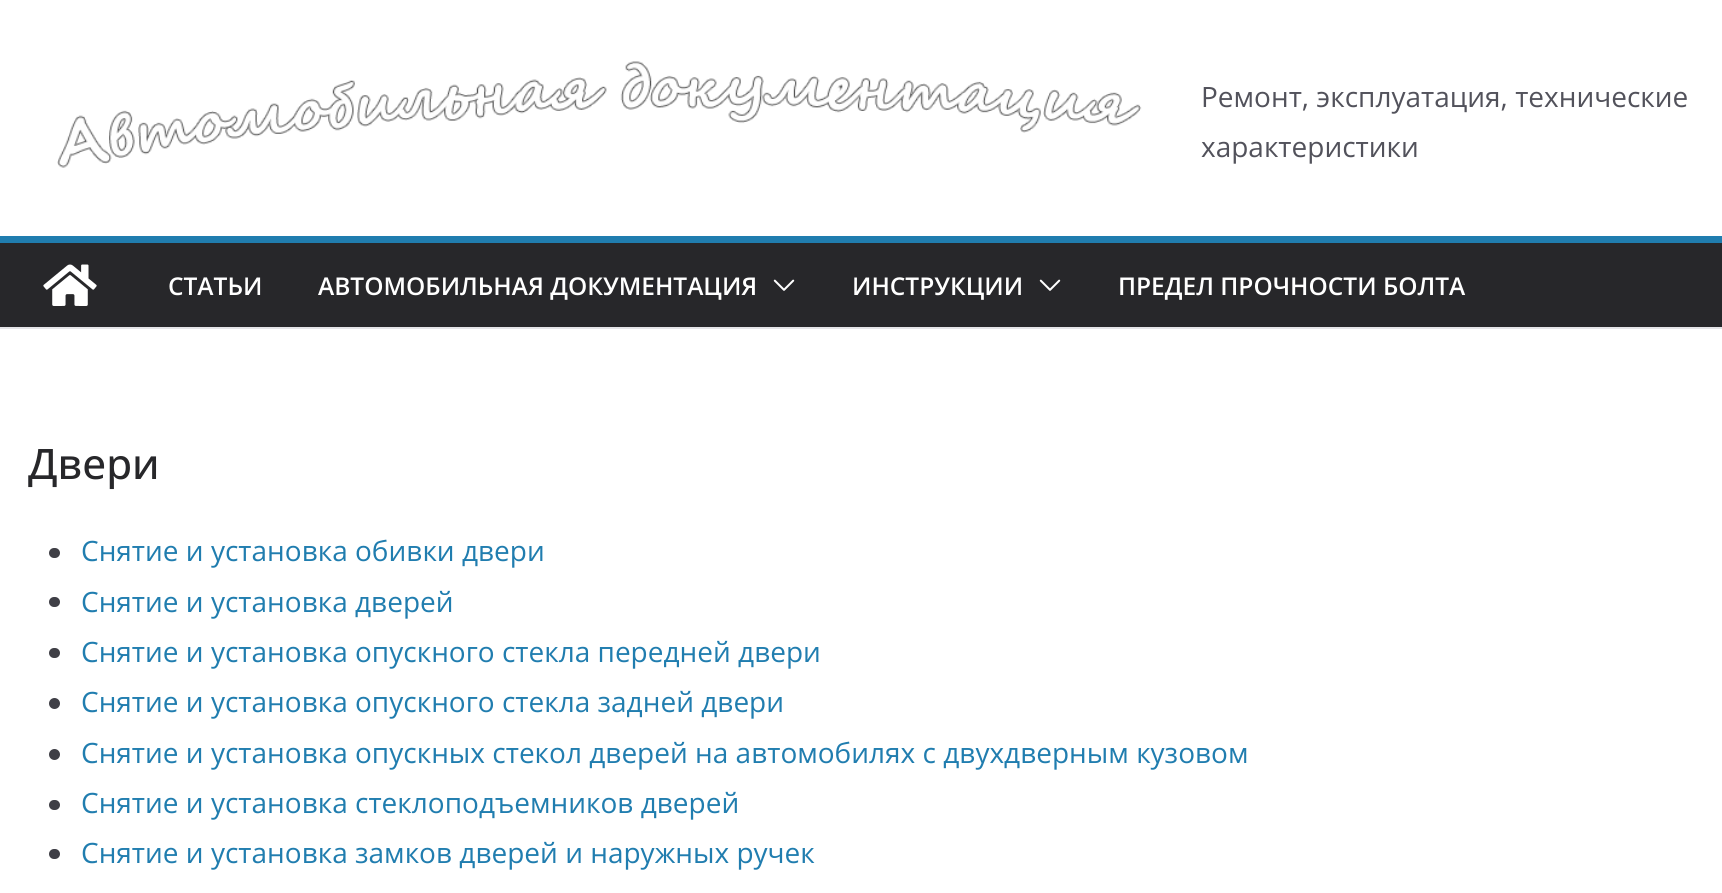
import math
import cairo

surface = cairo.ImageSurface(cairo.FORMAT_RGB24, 1722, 893)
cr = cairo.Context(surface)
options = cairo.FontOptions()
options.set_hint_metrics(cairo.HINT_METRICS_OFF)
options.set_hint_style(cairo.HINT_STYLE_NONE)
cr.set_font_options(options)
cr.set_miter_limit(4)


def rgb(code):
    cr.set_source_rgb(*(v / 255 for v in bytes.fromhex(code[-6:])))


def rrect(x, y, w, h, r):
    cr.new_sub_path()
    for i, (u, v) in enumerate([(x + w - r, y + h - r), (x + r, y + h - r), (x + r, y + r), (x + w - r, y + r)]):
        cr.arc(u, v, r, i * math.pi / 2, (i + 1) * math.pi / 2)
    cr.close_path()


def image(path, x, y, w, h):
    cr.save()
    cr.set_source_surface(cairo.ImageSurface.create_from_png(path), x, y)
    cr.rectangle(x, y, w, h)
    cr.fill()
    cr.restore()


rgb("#e4e4e7")
cr.paint()
rgb("#ffffff")
cr.rectangle(0, 0, 1722, 236)
cr.fill()
image("img/1.png", 57, 61, 1085, 107)
rgb("#27272a")
cr.rectangle(0, 243, 1722, 84)
cr.fill()
rgb("#207daf")
cr.rectangle(0, 236, 1722, 7)
cr.fill()
image("img/2.png", 43, 264, 54, 42)
image("img/3.png", 773, 279, 22, 12)
image("img/3.png", 1039, 279, 22, 12)
rgb("#ffffff")
cr.rectangle(0, 329, 1722, 564)
cr.fill()
rgb("#3f3f46")
rrect(49, 548, 11, 10, 5)
cr.fill()
rrect(49, 597, 11, 10, 5)
cr.fill()
rrect(49, 648, 11, 10, 5)
cr.fill()
cr.arc(54.5, 703.5, 5.5, 0, 2 * math.pi)
cr.fill()
cr.arc(54.5, 754.5, 5.5, 0, 2 * math.pi)
cr.fill()
rrect(49, 800, 11, 10, 5)
cr.fill()
rrect(49, 849, 11, 10, 5)
cr.fill()
cr.select_font_face("Open Sans")
cr.set_font_size(28)
rgb("#52525b")
cr.move_to(1201, 107)
cr.show_text("Ремонт, эксплуатация, технические")
cr.move_to(1201, 157)
cr.show_text("характеристики")
cr.select_font_face("Open Sans SemiBold")
cr.set_font_size(24.5)
rgb("#ffffff")
for x, y, s in [
    (168, 295, "СТАТЬИ"),
    (318, 295, "АВТОМОБИЛЬНАЯ ДОКУМЕНТАЦИЯ"),
    (852, 295, "ИНСТРУКЦИИ"),
    (1118, 295, "ПРЕДЕЛ ПРОЧНОСТИ БОЛТА"),
]:
    cr.move_to(x, y)
    cr.show_text(s)
cr.select_font_face("Open Sans Medium")
cr.set_font_size(42)
rgb("#27272a")
cr.move_to(28, 479)
cr.show_text("Двери")
cr.select_font_face("Open Sans")
cr.set_font_size(28)
rgb("#207daf")
for x, y, s in [
    (81, 561, "Снятие и установка обивки двери"),
    (81, 612, "Снятие и установка дверей"),
    (81, 662, "Снятие и установка опускного стекла передней двери"),
    (81, 712, "Снятие и установка опускного стекла задней двери"),
    (81, 763, "Снятие и установка опускных стекол дверей на автомобилях с двухдверным кузовом"),
    (81, 813, "Снятие и установка стеклоподъемников дверей"),
    (81, 863, "Снятие и установка замков дверей и наружных ручек"),
]:
    cr.move_to(x, y)
    cr.show_text(s)
surface.write_to_png("page.png")
